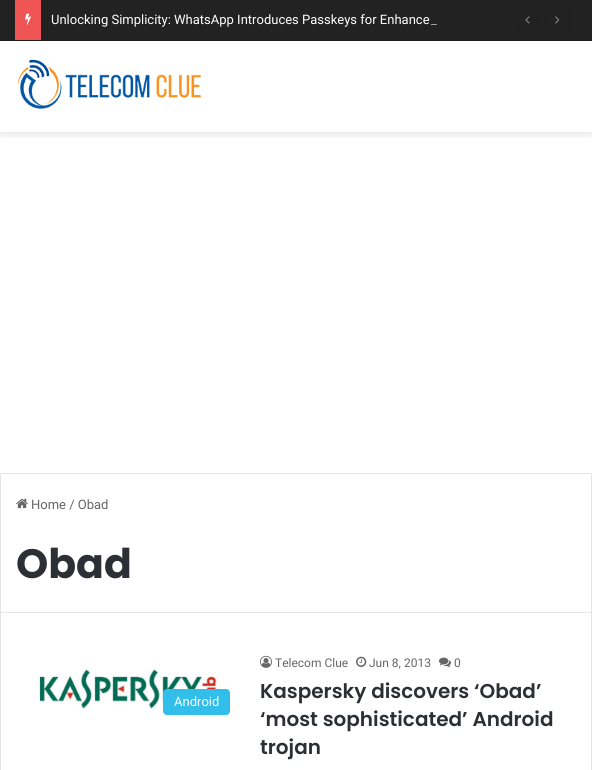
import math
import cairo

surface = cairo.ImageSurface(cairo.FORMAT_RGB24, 592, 770)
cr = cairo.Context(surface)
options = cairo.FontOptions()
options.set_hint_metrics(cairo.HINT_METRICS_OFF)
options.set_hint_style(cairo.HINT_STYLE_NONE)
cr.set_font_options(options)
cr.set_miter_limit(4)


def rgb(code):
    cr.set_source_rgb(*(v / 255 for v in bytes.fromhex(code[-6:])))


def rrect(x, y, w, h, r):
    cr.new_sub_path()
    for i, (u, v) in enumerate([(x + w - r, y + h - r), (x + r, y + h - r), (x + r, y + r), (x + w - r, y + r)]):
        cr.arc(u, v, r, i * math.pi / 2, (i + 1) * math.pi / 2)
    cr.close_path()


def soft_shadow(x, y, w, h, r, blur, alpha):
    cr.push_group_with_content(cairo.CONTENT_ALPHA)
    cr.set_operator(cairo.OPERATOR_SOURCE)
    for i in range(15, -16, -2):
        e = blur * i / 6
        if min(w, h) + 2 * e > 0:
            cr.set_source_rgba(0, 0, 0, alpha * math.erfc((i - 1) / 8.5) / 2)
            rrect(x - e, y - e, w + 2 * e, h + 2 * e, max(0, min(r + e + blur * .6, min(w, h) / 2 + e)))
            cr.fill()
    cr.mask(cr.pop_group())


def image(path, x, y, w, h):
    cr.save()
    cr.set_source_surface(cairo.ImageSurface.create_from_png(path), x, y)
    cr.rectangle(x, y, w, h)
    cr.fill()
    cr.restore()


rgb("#ffffff")
cr.paint()
cr.save()
cr.rectangle(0, 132, 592, 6)
cr.clip()
rgb("#000000")
soft_shadow(0, 44, 592, 91, 0, 3.5, 0.1)
cr.restore()
for x, y, w, h, color in [
    (0, 0, 592, 40, "#222222"),
    (0, 40, 592, 1, "#1f1f1f"),
    (15, 0, 26, 40, "#f05555"),
]:
    rgb(color)
    cr.rectangle(x, y, w, h)
    cr.fill()
image("img/1.png", 25, 13, 6, 12)
rrect(516.5, 9.5, 22, 22, 1.5)
rgb("#1f1f1f")
cr.set_line_width(1)
cr.stroke()
image("img/2.png", 525, 16, 5, 8)
rrect(546.5, 9.5, 22, 22, 1.5)
cr.stroke()
image("img/3.png", 555, 16, 5, 8)
image("img/4.png", 17, 59, 184, 50)
cr.new_path()
cr.move_to(2, 473.5)
cr.line_to(590, 473.5)
cr.curve_to(591, 473.5, 591.5, 474, 591.5, 475)
cr.line_to(591.5, 612.5)
cr.line_to(0.5, 612.5)
cr.line_to(0.5, 475)
cr.curve_to(0.5, 474, 1, 473.5, 2, 473.5)
cr.close_path()
rgb("#e6e6e6")
cr.stroke()
image("img/5.png", 16, 498, 12, 11)
cr.rectangle(591, 613, 1, 157)
cr.fill()
cr.rectangle(0, 613, 1, 157)
cr.fill()
image("img/6.png", 39, 666, 180, 45)
rgb("#32beeb")
rrect(163, 689, 67, 26, 4)
cr.fill()
image("img/7.png", 260, 655, 12, 13)
image("img/8.png", 356, 656, 11, 11)
image("img/9.png", 439, 657, 12, 10)
cr.select_font_face("Roboto")
cr.set_font_size(13)
rgb("#ffffff")
cr.move_to(51, 24)
cr.show_text("Unlocking Simplicity: WhatsApp Introduces Passkeys for Enhance")
rgb("#aaaaaa")
cr.move_to(431, 24)
cr.show_text("_")
rgb("#666666")
cr.move_to(31, 509)
cr.show_text("Home / Obad")
cr.select_font_face("Poppins", cairo.FONT_SLANT_NORMAL, cairo.FONT_WEIGHT_BOLD)
cr.set_font_size(41)
rgb("#2c2f34")
cr.move_to(16, 578)
cr.show_text("Obad")
cr.select_font_face("Roboto")
cr.set_font_size(13)
rgb("#ffffff")
cr.move_to(174, 706)
cr.show_text("Android")
cr.set_font_size(12)
rgb("#666666")
for x, y, s in [
    (275, 667, "Telecom Clue"),
    (369, 667, "Jun 8, 2013"),
    (454, 667, "0"),
]:
    cr.move_to(x, y)
    cr.show_text(s)
cr.select_font_face("Poppins SemiBold")
cr.set_font_size(20)
rgb("#2c2f34")
for x, y, s in [
    (260, 698, "Kaspersky discovers ‘Obad’"),
    (260, 726, "‘most sophisticated’ Android"),
    (260, 754, "trojan"),
]:
    cr.move_to(x, y)
    cr.show_text(s)
surface.write_to_png("page.png")
